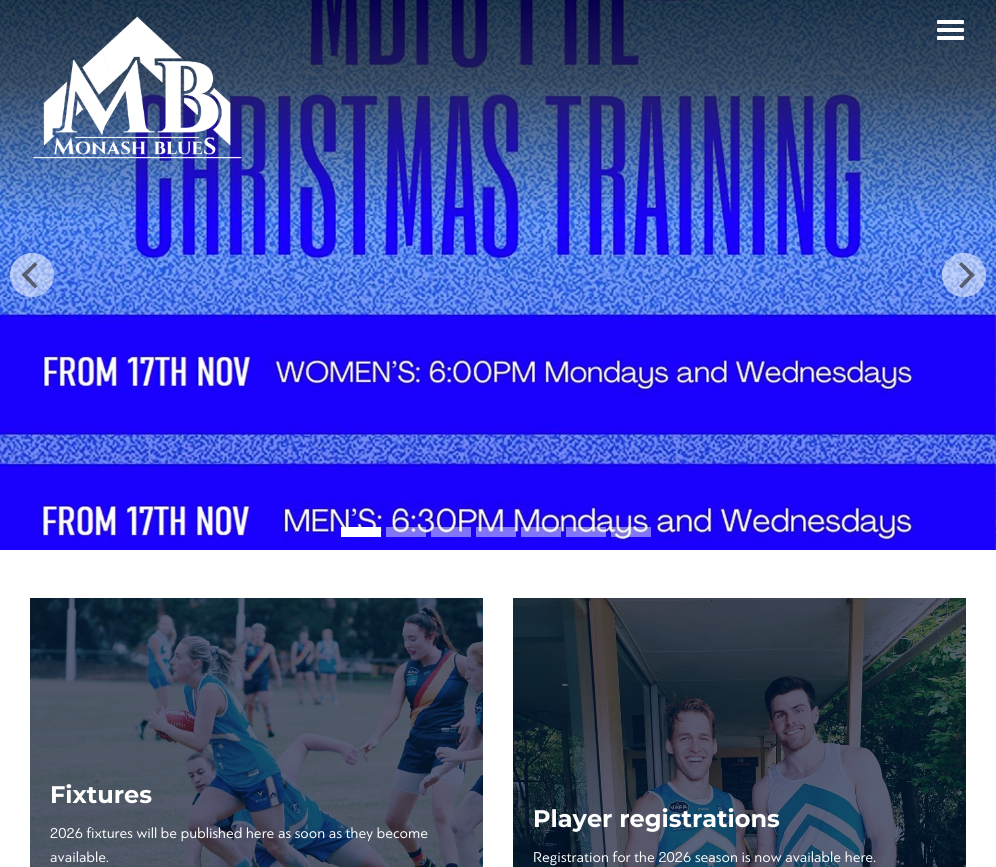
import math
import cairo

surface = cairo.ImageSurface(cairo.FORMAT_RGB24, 996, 867)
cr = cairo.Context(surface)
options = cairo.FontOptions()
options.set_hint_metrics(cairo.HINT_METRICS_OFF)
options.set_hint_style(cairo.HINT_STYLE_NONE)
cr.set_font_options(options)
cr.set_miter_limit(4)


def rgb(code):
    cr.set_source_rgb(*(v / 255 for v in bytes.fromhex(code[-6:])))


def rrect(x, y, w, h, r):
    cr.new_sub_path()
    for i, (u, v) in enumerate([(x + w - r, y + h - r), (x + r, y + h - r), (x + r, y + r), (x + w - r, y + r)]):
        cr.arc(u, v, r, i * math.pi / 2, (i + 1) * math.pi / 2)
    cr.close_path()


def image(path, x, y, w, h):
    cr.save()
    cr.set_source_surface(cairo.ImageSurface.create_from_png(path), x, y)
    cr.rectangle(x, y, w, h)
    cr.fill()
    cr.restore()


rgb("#ffffff")
cr.paint()
image("img/2.png", 0, 0, 996, 550)
image("img/1.png", 32, 16, 210, 143)
rgb("#ffffff")
rrect(937, 28, 27, 4, 1)
cr.fill()
rrect(937, 20, 27, 4, 1)
cr.fill()
rrect(937, 36, 27, 4, 1)
cr.fill()
cr.set_source_rgba(1, 1, 1, 0.52)
cr.arc(32, 275, 22, 0, 2 * math.pi)
cr.fill()
cr.set_source_rgba(0.2, 0.2, 0.2, 0.7)
cr.new_path()
cr.move_to(21.5, 275)
cr.line_to(35, 288.5)
cr.line_to(37.5, 286)
cr.line_to(27, 275)
cr.line_to(37.5, 264.5)
cr.line_to(35, 262)
cr.close_path()
cr.fill()
cr.set_source_rgba(1, 1, 1, 0.52)
cr.arc(964, 275, 22, 0, 2 * math.pi)
cr.fill()
cr.set_source_rgba(0.2, 0.2, 0.2, 0.7)
cr.new_path()
cr.move_to(975, 275)
cr.line_to(961.5, 262)
cr.line_to(959, 264.5)
cr.line_to(969.5, 275)
cr.line_to(959, 286)
cr.line_to(961.5, 288.5)
cr.close_path()
cr.fill()
rgb("#ffffff")
cr.rectangle(341, 527, 40, 10)
cr.fill()
cr.set_source_rgba(1, 1, 1, 0.45)
cr.rectangle(386, 527, 40, 10)
cr.fill()
cr.rectangle(431, 527, 40, 10)
cr.fill()
cr.rectangle(476, 527, 40, 10)
cr.fill()
cr.rectangle(521, 527, 40, 10)
cr.fill()
cr.rectangle(566, 527, 40, 10)
cr.fill()
cr.rectangle(611, 527, 40, 10)
cr.fill()
image("img/3.png", 30, 598, 453, 269)
image("img/4.png", 513, 598, 453, 269)
cr.select_font_face("Montserrat", cairo.FONT_SLANT_NORMAL, cairo.FONT_WEIGHT_BOLD)
cr.set_font_size(24)
rgb("#ffffff")
cr.move_to(50, 803)
cr.show_text("Fixtures")
cr.select_font_face("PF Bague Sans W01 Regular")
cr.set_font_size(15)
cr.move_to(50, 838)
cr.show_text("2026 fixtures will be published here as soon as they become")
cr.move_to(50, 862)
cr.show_text("available.")
cr.select_font_face("Montserrat", cairo.FONT_SLANT_NORMAL, cairo.FONT_WEIGHT_BOLD)
cr.set_font_size(24)
cr.move_to(533, 827)
cr.show_text("Player registrations")
cr.select_font_face("PF Bague Sans W01 Regular")
cr.set_font_size(15)
cr.move_to(533, 862)
cr.show_text("Registration for the 2026 season is now available here.")
surface.write_to_png("page.png")
